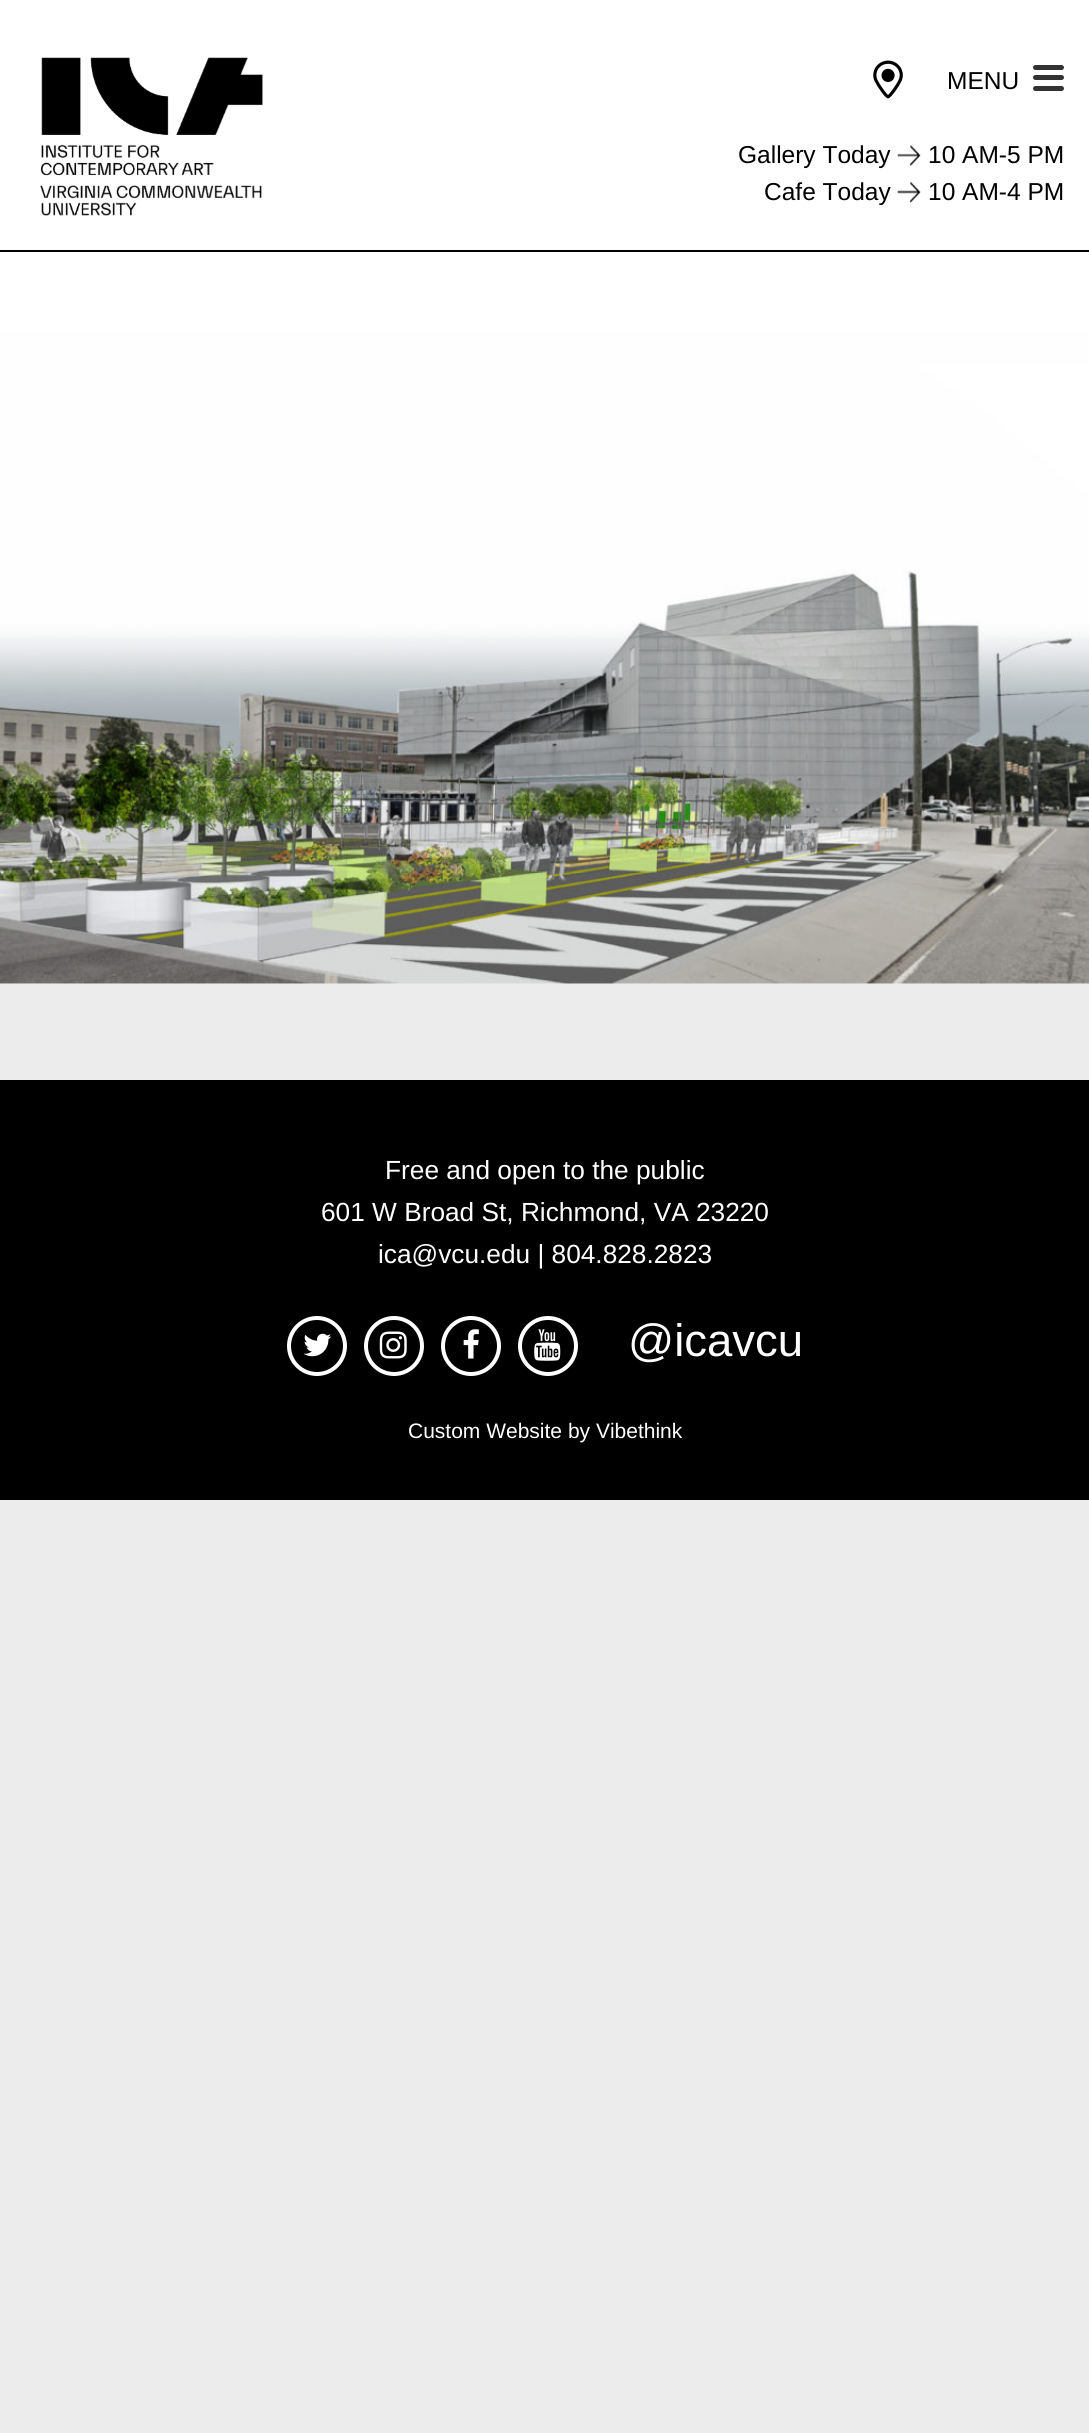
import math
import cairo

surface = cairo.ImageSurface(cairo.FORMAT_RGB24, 1089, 2433)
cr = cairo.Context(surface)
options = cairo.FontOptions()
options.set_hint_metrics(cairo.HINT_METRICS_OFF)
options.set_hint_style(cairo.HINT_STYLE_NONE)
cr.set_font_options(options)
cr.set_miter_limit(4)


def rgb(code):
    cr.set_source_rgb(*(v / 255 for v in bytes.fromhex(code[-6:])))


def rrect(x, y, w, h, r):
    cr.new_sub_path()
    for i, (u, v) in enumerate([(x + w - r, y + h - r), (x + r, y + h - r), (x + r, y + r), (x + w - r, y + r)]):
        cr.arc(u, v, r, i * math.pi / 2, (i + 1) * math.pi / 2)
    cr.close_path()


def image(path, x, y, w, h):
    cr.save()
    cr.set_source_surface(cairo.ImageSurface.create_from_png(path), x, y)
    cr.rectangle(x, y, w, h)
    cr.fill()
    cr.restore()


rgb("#edeced")
cr.paint()
rgb("#ffffff")
cr.rectangle(0, 0, 1089, 250)
cr.fill()
rgb("#000000")
cr.rectangle(0, 250, 1089, 2)
cr.fill()
image("img/1.png", 40, 57, 223, 159)
image("img/2.png", 873, 60, 30, 39)
rgb("#333333")
rrect(1033, 75, 31, 5, 2.5)
cr.fill()
rrect(1033, 65, 31, 5, 2.5)
cr.fill()
rrect(1033, 86, 31, 5, 2.5)
cr.fill()
image("img/3.png", 897, 145, 24, 21)
image("img/4.png", 897, 181, 24, 22)
rgb("#ffffff")
cr.rectangle(0, 252, 1089, 79)
cr.fill()
image("img/5.png", 0, 331, 1089, 653)
rgb("#000000")
cr.rectangle(0, 1080, 1089, 420)
cr.fill()
cr.arc(317, 1346, 28, 0, 2 * math.pi)
rgb("#ffffff")
cr.set_line_width(4)
cr.stroke()
image("img/6.png", 303, 1333, 29, 24)
cr.arc(394, 1346, 28, 0, 2 * math.pi)
cr.stroke()
image("img/7.png", 379, 1331, 28, 28)
cr.arc(471, 1346, 28, 0, 2 * math.pi)
cr.stroke()
image("img/8.png", 463, 1329, 16, 30)
cr.arc(548, 1346, 28, 0, 2 * math.pi)
cr.stroke()
image("img/9.png", 534, 1329, 27, 32)
cr.select_font_face("Liberation Sans")
cr.set_font_size(24.5)
rgb("#000000")
for x, y, s in [
    (947, 89, "MENU"),
    (738, 163, "Gallery Today"),
    (928, 163, "10 AM-5 PM"),
    (764, 200, "Cafe Today"),
    (928, 200, "10 AM-4 PM"),
]:
    cr.move_to(x, y)
    cr.show_text(s)
cr.set_font_size(26.25)
rgb("#ffffff")
for x, y, s in [
    (385, 1179, "Free and open to the public"),
    (321, 1221, "601 W Broad St, Richmond, VA 23220"),
    (378, 1263, "ica@vcu.edu | 804.828.2823"),
]:
    cr.move_to(x, y)
    cr.show_text(s)
cr.set_font_size(45.5)
cr.move_to(628, 1356)
cr.show_text("@icavcu")
cr.set_font_size(21)
cr.move_to(408, 1438)
cr.show_text("Custom Website by Vibethink")
surface.write_to_png("page.png")
